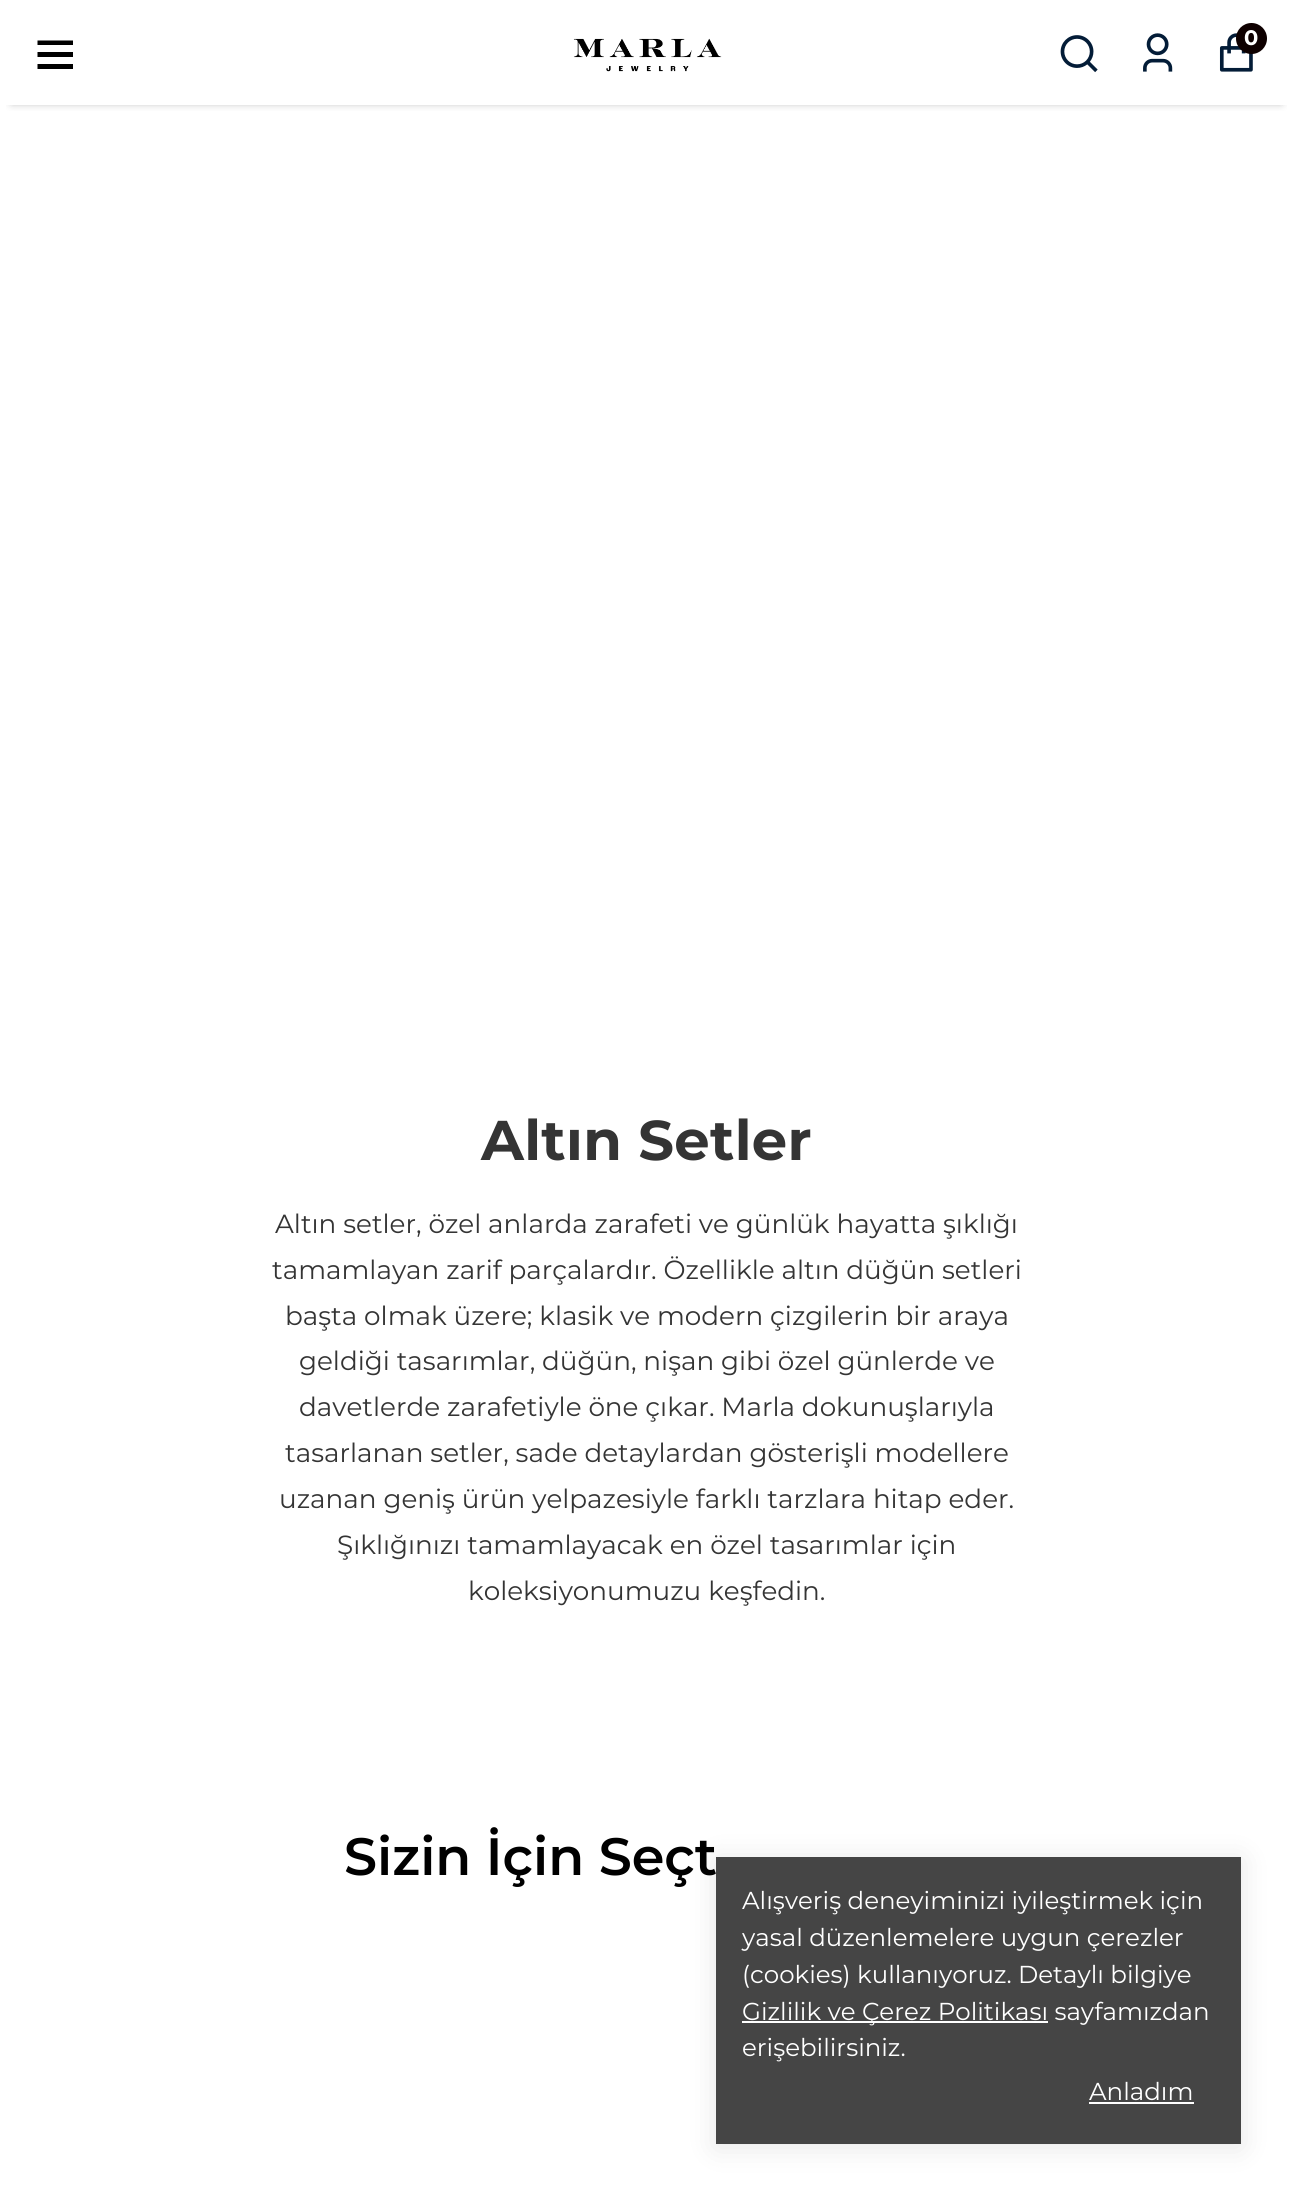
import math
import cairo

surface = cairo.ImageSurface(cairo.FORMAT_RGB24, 1292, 2195)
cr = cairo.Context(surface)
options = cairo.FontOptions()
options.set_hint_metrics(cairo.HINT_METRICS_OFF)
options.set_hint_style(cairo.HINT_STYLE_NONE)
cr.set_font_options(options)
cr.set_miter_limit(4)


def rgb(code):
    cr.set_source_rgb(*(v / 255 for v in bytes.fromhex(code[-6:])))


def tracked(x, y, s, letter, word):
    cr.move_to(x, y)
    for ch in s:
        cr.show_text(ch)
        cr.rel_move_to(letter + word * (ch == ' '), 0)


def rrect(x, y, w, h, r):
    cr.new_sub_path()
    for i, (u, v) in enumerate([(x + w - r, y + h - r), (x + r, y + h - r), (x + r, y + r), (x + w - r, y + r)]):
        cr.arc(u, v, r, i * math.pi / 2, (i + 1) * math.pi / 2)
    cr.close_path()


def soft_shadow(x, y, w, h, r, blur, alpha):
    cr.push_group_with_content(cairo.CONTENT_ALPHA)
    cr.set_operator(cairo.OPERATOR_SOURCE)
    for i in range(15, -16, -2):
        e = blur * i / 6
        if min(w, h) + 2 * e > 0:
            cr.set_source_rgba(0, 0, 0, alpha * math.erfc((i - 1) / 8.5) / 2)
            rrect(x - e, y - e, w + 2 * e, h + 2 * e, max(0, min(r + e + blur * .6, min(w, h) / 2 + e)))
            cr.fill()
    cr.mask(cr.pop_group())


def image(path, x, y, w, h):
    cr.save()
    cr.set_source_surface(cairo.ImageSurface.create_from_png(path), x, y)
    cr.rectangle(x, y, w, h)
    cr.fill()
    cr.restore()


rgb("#ffffff")
cr.paint()
cr.save()
cr.rectangle(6, 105, 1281, 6)
cr.clip()
rgb("#989898")
soft_shadow(12, 21, 1269, 81, 0, 4.5, 1)
cr.restore()
rgb("#000000")
cr.new_path()
cr.move_to(73, 40.5)
cr.line_to(73, 45)
cr.line_to(37.5, 45)
cr.line_to(37.5, 40.5)
cr.close_path()
cr.move_to(37.5, 57)
cr.line_to(73, 57)
cr.line_to(73, 52)
cr.line_to(37.5, 52)
cr.close_path()
cr.move_to(37.5, 69)
cr.line_to(73, 69)
cr.line_to(73, 64)
cr.line_to(37.5, 64)
cr.close_path()
cr.fill()
image("img/1.png", 573, 38, 149, 34)
image("img/2.png", 1060, 35, 38, 38)
image("img/3.png", 1143, 33, 30, 39)
image("img/4.png", 1219, 33, 34, 39)
rgb("#0e0000")
cr.arc(1251.5, 38.5, 15.5, 0, 2 * math.pi)
cr.fill()
cr.save()
cr.set_fill_rule(cairo.FILL_RULE_EVEN_ODD)
cr.new_path()
cr.move_to(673, 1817)
cr.line_to(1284, 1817)
cr.line_to(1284, 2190)
cr.line_to(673, 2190)
cr.close_path()
cr.move_to(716, 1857)
cr.line_to(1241, 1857)
cr.line_to(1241, 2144)
cr.line_to(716, 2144)
cr.close_path()
cr.clip()
rgb("#000000")
soft_shadow(716, 1860, 525, 287, 0, 14, 0.1)
cr.restore()
cr.select_font_face("Montserrat", cairo.FONT_SLANT_NORMAL, cairo.FONT_WEIGHT_BOLD)
cr.set_font_size(21)
rgb("#ffffff")
cr.move_to(1244, 45)
cr.show_text("0")
cr.set_font_size(56)
rgb("#343434")
tracked(481, 1160, "Altın Setler", 0.3, 0)
cr.select_font_face("Montserrat")
cr.set_font_size(26.25)
for x, y, s in [
    (275, 1233, "Altın setler, özel anlarda zarafeti ve günlük hayatta şıklığı"),
    (272, 1279, "tamamlayan zarif parçalardır. Özellikle altın düğün setleri"),
    (285, 1325, "başta olmak üzere; klasik ve modern çizgilerin bir araya"),
    (299, 1370, "geldiği tasarımlar, düğün, nişan gibi özel günlerde ve"),
    (299, 1416, "davetlerde zarafetiyle öne çıkar. Marla dokunuşlarıyla"),
    (285, 1462, "tasarlanan setler, sade detaylardan gösterişli modellere"),
    (279, 1508, "uzanan geniş ürün yelpazesiyle farklı tarzlara hitap eder."),
    (337, 1554, "Şıklığınızı tamamlayacak en özel tasarımlar için"),
    (468, 1600, "koleksiyonumuzu keşfedin."),
]:
    cr.move_to(x, y)
    cr.show_text(s)
cr.select_font_face("Montserrat SemiBold")
cr.set_font_size(52.5)
rgb("#000000")
cr.move_to(344, 1875)
cr.show_text("Sizin İçin Seçt")
cr.set_source_rgba(0, 0, 0, 0.73)
cr.rectangle(716, 1857, 525, 287)
cr.fill()
cr.select_font_face("Montserrat")
cr.set_font_size(24.5)
rgb("#ffffff")
cr.move_to(1089, 2100)
cr.show_text("Anladım")
cr.rectangle(1089, 2102, 105, 2)
cr.fill()
cr.move_to(742, 2056)
cr.show_text("erişebilirsiniz.")
cr.rectangle(742, 2021, 306, 2)
cr.fill()
for x, y, s in [
    (742, 2020, "Gizlilik ve Çerez Politikası sayfamızdan"),
    (742, 1983, "(cookies) kullanıyoruz. Detaylı bilgiye"),
    (742, 1946, "yasal düzenlemelere uygun çerezler"),
    (742, 1909, "Alışveriş deneyiminizi iyileştirmek için"),
]:
    cr.move_to(x, y)
    cr.show_text(s)
surface.write_to_png("page.png")
